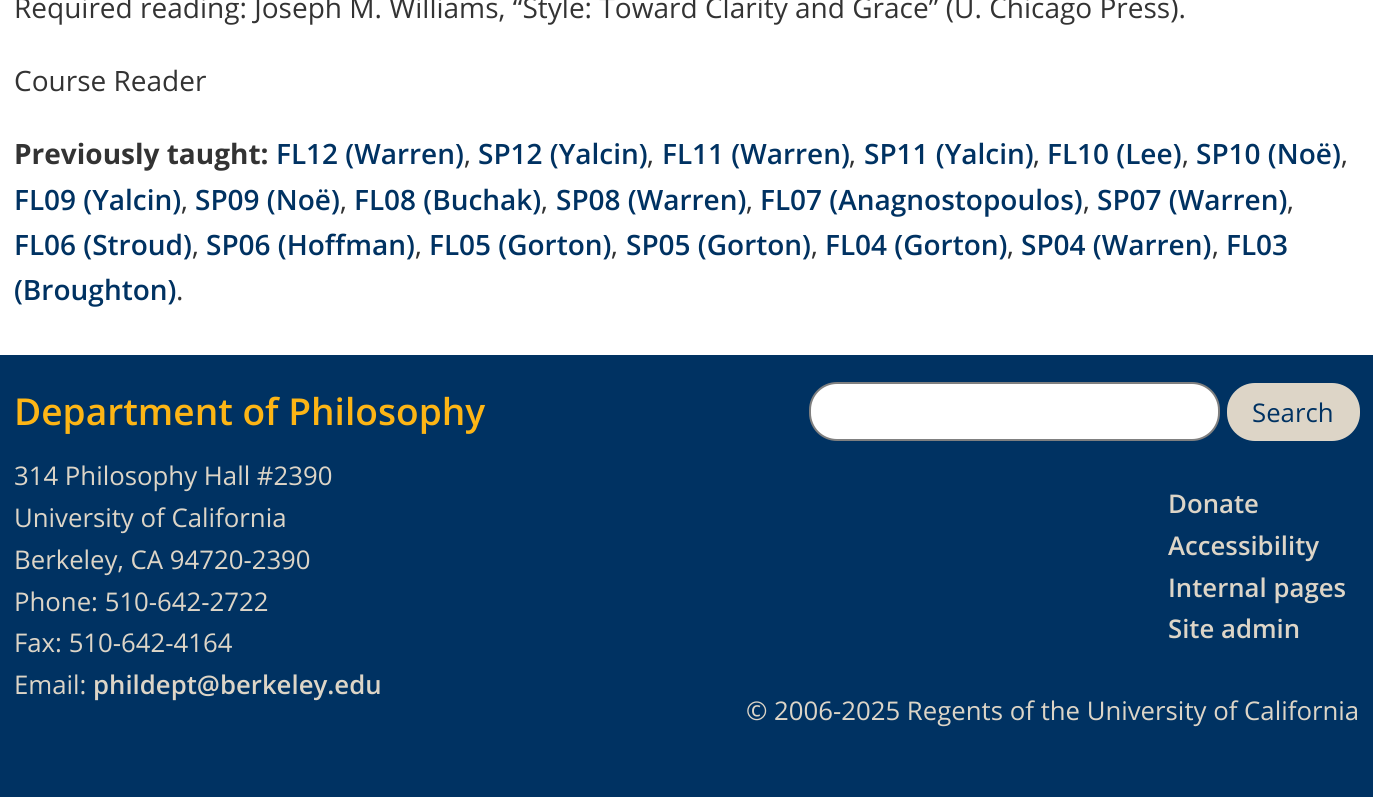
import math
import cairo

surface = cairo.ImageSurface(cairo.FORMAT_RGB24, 1373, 797)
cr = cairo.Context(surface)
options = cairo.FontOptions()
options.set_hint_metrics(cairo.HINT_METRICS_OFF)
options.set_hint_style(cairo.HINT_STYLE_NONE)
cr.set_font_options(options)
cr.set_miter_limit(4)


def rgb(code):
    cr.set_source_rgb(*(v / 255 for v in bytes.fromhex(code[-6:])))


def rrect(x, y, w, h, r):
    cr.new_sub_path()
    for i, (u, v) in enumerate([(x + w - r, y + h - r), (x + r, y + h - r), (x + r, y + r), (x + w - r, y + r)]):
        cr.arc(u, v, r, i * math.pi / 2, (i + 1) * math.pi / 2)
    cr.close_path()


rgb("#ffffff")
cr.paint()
rgb("#003262")
cr.rectangle(0, 355, 1373, 442)
cr.fill()
rgb("#ffffff")
rrect(810, 383, 409, 57, 27)
cr.fill_preserve()
rgb("#808080")
cr.stroke()
rgb("#ddd5c7")
rrect(1227, 383, 133, 58, 28)
cr.fill()
cr.select_font_face("Open Sans")
cr.set_font_size(28)
rgb("#333333")
cr.move_to(14, 18)
cr.show_text("Required reading: Joseph M. Williams, “Style: Toward Clarity and Grace” (U. Chicago Press).")
cr.move_to(14, 91)
cr.show_text("Course Reader")
cr.select_font_face("Open Sans", cairo.FONT_SLANT_NORMAL, cairo.FONT_WEIGHT_BOLD)
cr.move_to(14, 164)
cr.show_text("Previously taught:")
cr.select_font_face("Open Sans SemiBold")
rgb("#003262")
cr.move_to(276, 164)
cr.show_text("FL12 (Warren)")
cr.select_font_face("Open Sans")
rgb("#333333")
cr.move_to(464, 164)
cr.show_text(",")
cr.select_font_face("Open Sans SemiBold")
rgb("#003262")
cr.move_to(478, 164)
cr.show_text("SP12 (Yalcin)")
cr.select_font_face("Open Sans")
rgb("#333333")
cr.move_to(647, 164)
cr.show_text(",")
cr.select_font_face("Open Sans SemiBold")
rgb("#003262")
cr.move_to(662, 164)
cr.show_text("FL11 (Warren)")
cr.select_font_face("Open Sans")
rgb("#333333")
cr.move_to(849, 164)
cr.show_text(",")
cr.select_font_face("Open Sans SemiBold")
rgb("#003262")
cr.move_to(864, 164)
cr.show_text("SP11 (Yalcin)")
cr.select_font_face("Open Sans")
rgb("#333333")
cr.move_to(1033, 164)
cr.show_text(",")
cr.select_font_face("Open Sans SemiBold")
rgb("#003262")
cr.move_to(1047, 164)
cr.show_text("FL10 (Lee)")
cr.select_font_face("Open Sans")
rgb("#333333")
cr.move_to(1182, 164)
cr.show_text(",")
cr.select_font_face("Open Sans SemiBold")
rgb("#003262")
cr.move_to(1196, 164)
cr.show_text("SP10 (Noë)")
cr.select_font_face("Open Sans")
rgb("#333333")
cr.move_to(1341, 164)
cr.show_text(",")
cr.select_font_face("Open Sans SemiBold")
rgb("#003262")
cr.move_to(14, 210)
cr.show_text("FL09 (Yalcin)")
cr.select_font_face("Open Sans")
rgb("#333333")
cr.move_to(181, 210)
cr.show_text(",")
cr.select_font_face("Open Sans SemiBold")
rgb("#003262")
cr.move_to(195, 210)
cr.show_text("SP09 (Noë)")
cr.select_font_face("Open Sans")
rgb("#333333")
cr.move_to(340, 210)
cr.show_text(",")
cr.select_font_face("Open Sans SemiBold")
rgb("#003262")
cr.move_to(354, 210)
cr.show_text("FL08 (Buchak)")
cr.select_font_face("Open Sans")
rgb("#333333")
cr.move_to(541, 210)
cr.show_text(",")
cr.select_font_face("Open Sans SemiBold")
rgb("#003262")
cr.move_to(556, 210)
cr.show_text("SP08 (Warren)")
cr.select_font_face("Open Sans")
rgb("#333333")
cr.move_to(746, 210)
cr.show_text(",")
cr.select_font_face("Open Sans SemiBold")
rgb("#003262")
cr.move_to(760, 210)
cr.show_text("FL07 (Anagnostopoulos)")
cr.select_font_face("Open Sans")
rgb("#333333")
cr.move_to(1083, 210)
cr.show_text(",")
cr.select_font_face("Open Sans SemiBold")
rgb("#003262")
cr.move_to(1097, 210)
cr.show_text("SP07 (Warren)")
cr.select_font_face("Open Sans")
rgb("#333333")
cr.move_to(1287, 210)
cr.show_text(",")
cr.select_font_face("Open Sans SemiBold")
rgb("#003262")
cr.move_to(14, 255)
cr.show_text("FL06 (Stroud)")
cr.select_font_face("Open Sans")
rgb("#333333")
cr.move_to(192, 255)
cr.show_text(",")
cr.select_font_face("Open Sans SemiBold")
rgb("#003262")
cr.move_to(206, 255)
cr.show_text("SP06 (Hoffman)")
cr.select_font_face("Open Sans")
rgb("#333333")
cr.move_to(415, 255)
cr.show_text(",")
cr.select_font_face("Open Sans SemiBold")
rgb("#003262")
cr.move_to(429, 255)
cr.show_text("FL05 (Gorton)")
cr.select_font_face("Open Sans")
rgb("#333333")
cr.move_to(611, 255)
cr.show_text(",")
cr.select_font_face("Open Sans SemiBold")
rgb("#003262")
cr.move_to(626, 255)
cr.show_text("SP05 (Gorton)")
cr.select_font_face("Open Sans")
rgb("#333333")
cr.move_to(811, 255)
cr.show_text(",")
cr.select_font_face("Open Sans SemiBold")
rgb("#003262")
cr.move_to(825, 255)
cr.show_text("FL04 (Gorton)")
cr.select_font_face("Open Sans")
rgb("#333333")
cr.move_to(1007, 255)
cr.show_text(",")
cr.select_font_face("Open Sans SemiBold")
rgb("#003262")
cr.move_to(1021, 255)
cr.show_text("SP04 (Warren)")
cr.select_font_face("Open Sans")
rgb("#333333")
cr.move_to(1212, 255)
cr.show_text(",")
cr.select_font_face("Open Sans SemiBold")
rgb("#003262")
cr.move_to(1226, 255)
cr.show_text("FL03")
cr.move_to(14, 300)
cr.show_text("(Broughton)")
cr.select_font_face("Open Sans")
rgb("#333333")
cr.move_to(176, 300)
cr.show_text(".")
cr.select_font_face("Open Sans SemiBold")
cr.set_font_size(37.1)
rgb("#fdb515")
cr.move_to(14, 425)
cr.show_text("Department of Philosophy")
cr.select_font_face("Open Sans")
cr.set_font_size(25.75)
rgb("#ddd5c7")
for x, y, s in [
    (14, 485, "314 Philosophy Hall #2390"),
    (14, 527, "University of California"),
    (14, 569, "Berkeley, CA 94720-2390"),
    (14, 611, "Phone: 510-642-2722"),
    (14, 652, "Fax: 510-642-4164"),
    (14, 694, "Email:"),
]:
    cr.move_to(x, y)
    cr.show_text(s)
cr.select_font_face("Open Sans SemiBold")
cr.move_to(93, 694)
cr.show_text("phildept@berkeley.edu")
cr.select_font_face("Open Sans")
rgb("#003262")
cr.move_to(1252, 422)
cr.show_text("Search")
cr.select_font_face("Open Sans SemiBold")
rgb("#ddd5c7")
for x, y, s in [
    (1168, 513, "Donate"),
    (1168, 555, "Accessibility"),
    (1168, 597, "Internal pages"),
    (1168, 638, "Site admin"),
]:
    cr.move_to(x, y)
    cr.show_text(s)
cr.select_font_face("Open Sans")
cr.move_to(746, 720)
cr.show_text("© 2006-2025 Regents of the University of California")
surface.write_to_png("page.png")
